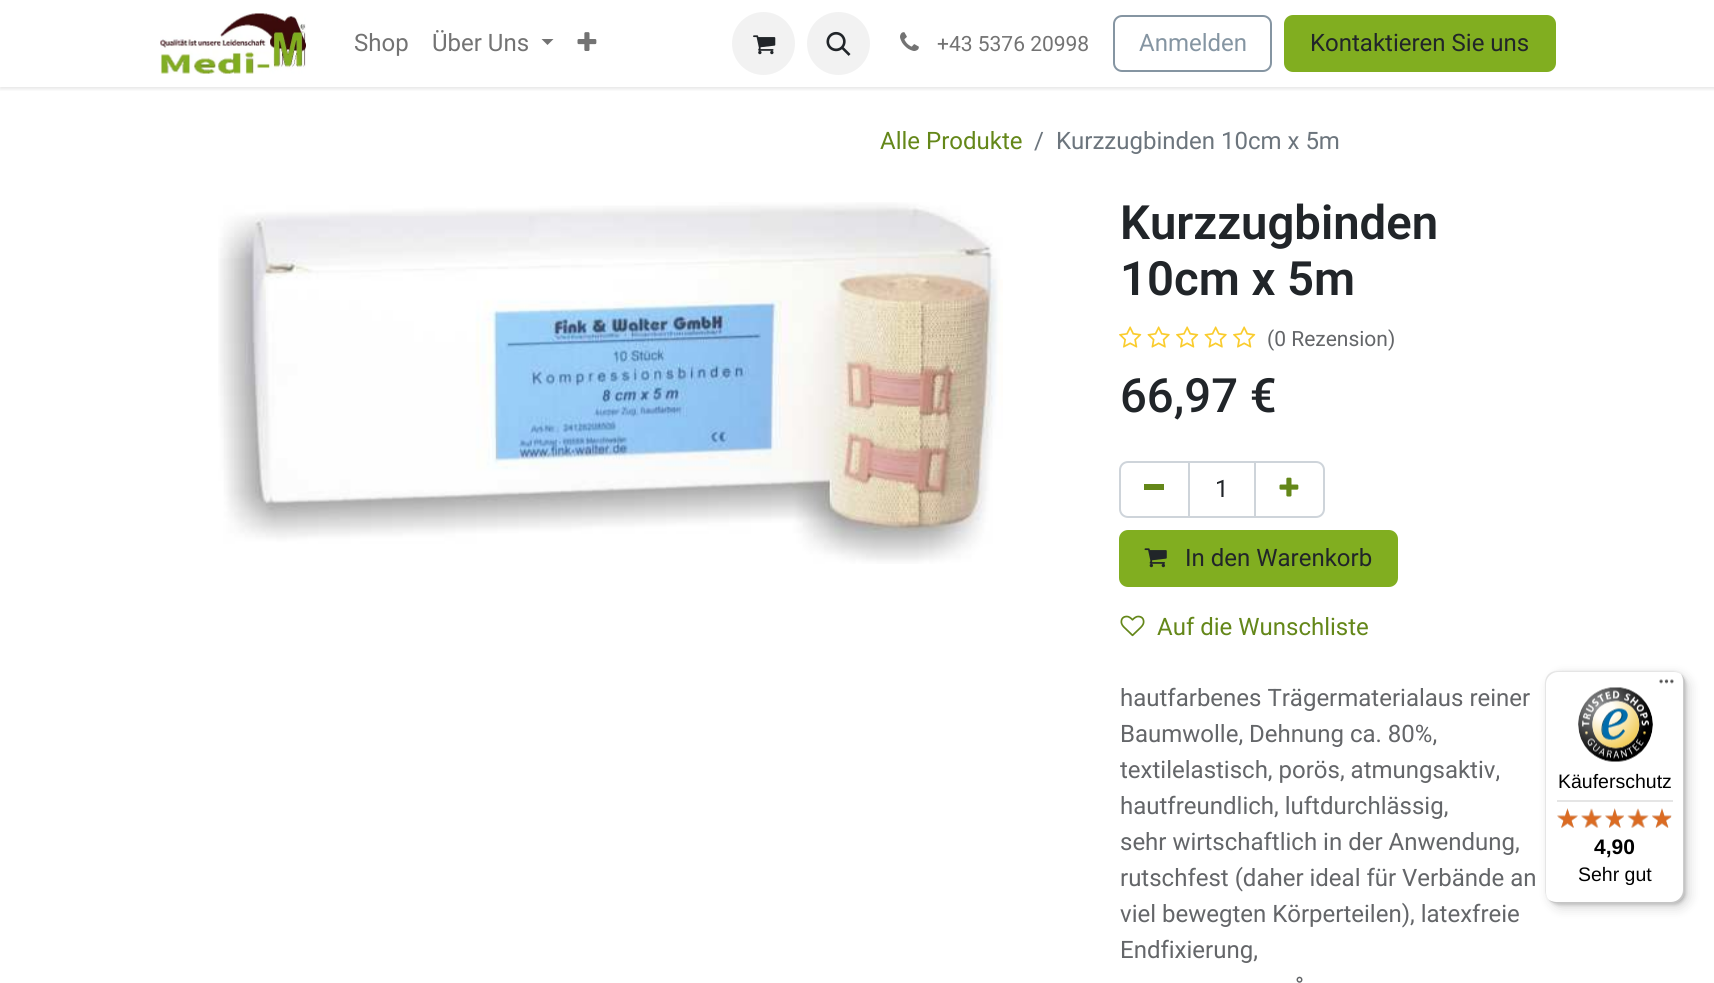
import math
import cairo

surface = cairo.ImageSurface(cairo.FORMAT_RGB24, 1714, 983)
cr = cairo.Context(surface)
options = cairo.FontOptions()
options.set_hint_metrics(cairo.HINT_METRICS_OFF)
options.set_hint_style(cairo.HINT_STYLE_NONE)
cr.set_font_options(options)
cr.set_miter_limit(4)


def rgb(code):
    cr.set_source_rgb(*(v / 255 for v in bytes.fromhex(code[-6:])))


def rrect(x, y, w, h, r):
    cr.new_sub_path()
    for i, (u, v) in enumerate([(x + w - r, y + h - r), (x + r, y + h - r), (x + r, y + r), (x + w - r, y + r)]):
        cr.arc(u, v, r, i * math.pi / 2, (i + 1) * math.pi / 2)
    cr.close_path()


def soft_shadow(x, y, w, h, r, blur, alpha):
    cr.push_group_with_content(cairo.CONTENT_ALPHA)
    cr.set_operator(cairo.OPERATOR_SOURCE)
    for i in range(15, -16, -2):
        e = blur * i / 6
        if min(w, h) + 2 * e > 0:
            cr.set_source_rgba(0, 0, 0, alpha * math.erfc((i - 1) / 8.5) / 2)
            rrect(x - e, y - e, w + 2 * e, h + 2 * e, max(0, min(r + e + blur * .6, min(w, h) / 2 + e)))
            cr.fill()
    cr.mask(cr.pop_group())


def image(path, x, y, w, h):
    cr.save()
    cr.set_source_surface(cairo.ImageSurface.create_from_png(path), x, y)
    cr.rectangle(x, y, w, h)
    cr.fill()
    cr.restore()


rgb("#ffffff")
cr.paint()
cr.save()
cr.rectangle(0, 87, 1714, 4)
cr.clip()
rgb("#000000")
soft_shadow(0, 2, 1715, 87, 0, 2, 0.1)
cr.restore()
image("img/1.png", 160, 13, 146, 61)
rgb("#737373")
cr.new_path()
cr.move_to(541.5, 39)
cr.line_to(553.5, 39)
cr.line_to(547.5, 45)
cr.close_path()
cr.fill()
image("img/2.png", 577, 32, 20, 19)
rgb("#f2f2f2")
cr.arc(763.5, 43.5, 31.5, 0, 2 * math.pi)
cr.fill()
image("img/3.png", 753, 35, 23, 20)
cr.arc(838.5, 43.5, 31.5, 0, 2 * math.pi)
cr.fill()
image("img/4.png", 826, 31, 25, 25)
image("img/5.png", 900, 32, 19, 19)
rrect(1114, 16, 157, 55, 8)
rgb("#8595a2")
cr.stroke()
rgb("#81ae20")
rrect(1285, 16, 270, 55, 8)
cr.fill_preserve()
cr.stroke()
image("img/6.png", 218, 202, 785, 362)
image("img/7.png", 1119, 326, 23, 22)
image("img/8.png", 1147, 326, 23, 22)
image("img/7.png", 1176, 326, 23, 22)
image("img/8.png", 1204, 326, 23, 22)
image("img/7.png", 1233, 326, 23, 22)
cr.rectangle(1189, 462, 66, 55)
rgb("#ced4da")
cr.stroke()
cr.new_path()
cr.move_to(1128, 462)
cr.line_to(1189, 462)
cr.line_to(1189, 517)
cr.line_to(1128, 517)
cr.curve_to(1123.5, 517, 1120, 513.5, 1120, 509)
cr.line_to(1120, 470)
cr.curve_to(1120, 465.5, 1123.5, 462, 1128, 462)
cr.close_path()
cr.stroke()
rgb("#648719")
cr.rectangle(1144, 484, 20, 6)
cr.fill()
cr.new_path()
cr.move_to(1255, 462)
cr.line_to(1316, 462)
cr.curve_to(1320.5, 462, 1324, 465.5, 1324, 470)
cr.line_to(1324, 509)
cr.curve_to(1324, 513.5, 1320.5, 517, 1316, 517)
cr.line_to(1255, 517)
cr.close_path()
rgb("#ced4da")
cr.stroke()
image("img/9.png", 1279, 477, 20, 20)
rgb("#81ae20")
rrect(1120, 531, 277, 55, 8)
cr.fill_preserve()
cr.stroke()
image("img/10.png", 1144, 548, 23, 20)
image("img/11.png", 1120, 615, 25, 22)
rgb("#000000")
soft_shadow(1550, 675, 139, 233, 12, 6, 0.15)
soft_shadow(1547, 672, 139, 233, 12, 1.5, 0.15)
rgb("#ffffff")
rrect(1545, 671, 140, 232, 12)
cr.fill()
rgb("#e5e5e5")
cr.new_path()
cr.move_to(1558, 672)
cr.line_to(1674, 672)
cr.curve_to(1677, 672, 1679, 673, 1681, 674)
cr.curve_to(1679, 672, 1676, 671, 1673, 671)
cr.line_to(1557, 671)
cr.curve_to(1550, 671, 1545, 676, 1545, 683)
cr.line_to(1545, 891)
cr.curve_to(1545, 895, 1547, 898, 1549, 900)
cr.curve_to(1547, 898, 1546, 895, 1546, 892)
cr.line_to(1546, 684)
cr.curve_to(1546, 677, 1552, 672, 1558, 672)
cr.close_path()
cr.fill()
cr.set_source_rgba(0, 0, 0, 0.2)
cr.new_path()
cr.move_to(1548, 899)
cr.curve_to(1550, 901, 1553, 903, 1557, 903)
cr.line_to(1673, 903)
cr.curve_to(1680, 903, 1685, 898, 1685, 891)
cr.line_to(1685, 683)
cr.curve_to(1685, 679, 1683, 676, 1681, 674)
cr.curve_to(1682, 676, 1683, 678, 1683, 681)
cr.line_to(1683, 890)
cr.curve_to(1683, 896, 1678, 902, 1671, 902)
cr.line_to(1556, 902)
cr.curve_to(1553, 902, 1550, 901, 1548, 899)
cr.close_path()
cr.fill()
cr.set_source_rgba(0.196, 0.196, 0.196, 0.2)
cr.new_path()
cr.move_to(1549, 900)
cr.curve_to(1551, 902, 1554, 903, 1557, 903)
cr.line_to(1673, 903)
cr.curve_to(1680, 903, 1685, 898, 1685, 891)
cr.line_to(1685, 683)
cr.curve_to(1685, 679, 1683, 676, 1681, 674)
cr.curve_to(1683, 676, 1684, 679, 1684, 682)
cr.line_to(1684, 890)
cr.curve_to(1684, 897, 1678, 902, 1672, 902)
cr.line_to(1556, 902)
cr.curve_to(1553, 902, 1551, 901, 1549, 900)
cr.close_path()
cr.fill()
cr.set_source_rgba(1, 1, 1, 0.3)
cr.new_path()
cr.move_to(1548, 899)
cr.curve_to(1550, 901, 1553, 903, 1557, 903)
cr.line_to(1673, 903)
cr.curve_to(1680, 903, 1685, 898, 1685, 891)
cr.line_to(1685, 683)
cr.curve_to(1685, 679, 1683, 676, 1681, 674)
cr.curve_to(1683, 676, 1684, 679, 1684, 682)
cr.line_to(1684, 890)
cr.curve_to(1684, 897, 1678, 902, 1672, 902)
cr.line_to(1556, 902)
cr.curve_to(1553, 902, 1550, 901, 1548, 899)
cr.close_path()
cr.fill()
image("img/12.png", 1659, 679, 15, 5)
image("img/13.png", 1578, 687, 75, 75)
rgb("#e5e5e5")
cr.rectangle(1557, 800, 116, 2)
cr.fill()
image("img/14.png", 1557, 808, 21, 20)
image("img/15.png", 1581, 809, 21, 19)
image("img/16.png", 1605, 808, 19, 20)
image("img/17.png", 1628, 809, 20, 19)
image("img/18.png", 1652, 808, 20, 20)
image("img/19.png", 1557, 808, 21, 20)
image("img/20.png", 1581, 808, 21, 20)
image("img/21.png", 1605, 808, 19, 20)
image("img/22.png", 1627, 808, 22, 20)
image("img/23.png", 1652, 808, 19, 20)
cr.select_font_face("Roboto")
cr.set_font_size(24)
rgb("#737373")
cr.move_to(354, 51)
cr.show_text("Shop")
cr.move_to(432, 51)
cr.show_text("Über Uns")
cr.set_font_size(21)
cr.move_to(937, 51)
cr.show_text("+43 5376 20998")
cr.set_font_size(24)
rgb("#8595a2")
cr.move_to(1139, 51)
cr.show_text("Anmelden")
rgb("#212529")
cr.move_to(1310, 51)
cr.show_text("Kontaktieren Sie uns")
rgb("#648719")
cr.move_to(880, 149)
cr.show_text("Alle Produkte")
rgb("#6c757d")
cr.move_to(1034, 149)
cr.show_text("/")
cr.move_to(1056, 149)
cr.show_text("Kurzzugbinden 10cm x 5m")
cr.select_font_face("Roboto SemiBold")
cr.set_font_size(47.25)
rgb("#212529")
cr.move_to(1120, 239)
cr.show_text("Kurzzugbinden")
cr.move_to(1120, 295)
cr.show_text("10cm x 5m")
cr.select_font_face("Roboto")
cr.set_font_size(21)
rgb("#646669")
cr.move_to(1267, 346)
cr.show_text("(0 Rezension)")
cr.select_font_face("Roboto Medium")
cr.set_font_size(47.25)
rgb("#212529")
cr.move_to(1120, 412)
cr.show_text("66,97 €")
cr.select_font_face("Roboto")
cr.set_font_size(24)
cr.move_to(1215, 497)
cr.show_text("1")
cr.move_to(1185, 566)
cr.show_text("In den Warenkorb")
rgb("#648719")
cr.move_to(1157, 635)
cr.show_text("Auf die Wunschliste")
rgb("#646669")
for x, y, s in [
    (1120, 706, "hautfarbenes Trägermaterialaus reiner"),
    (1120, 742, "Baumwolle, Dehnung ca. 80%,"),
    (1120, 778, "textilelastisch, porös, atmungsaktiv,"),
    (1120, 814, "hautfreundlich, luftdurchlässig,"),
    (1120, 850, "sehr wirtschaftlich in der Anwendung,"),
    (1120, 886, "rutschfest (daher ideal für Verbände an"),
    (1120, 922, "viel bewegten Körperteilen), latexfreie"),
    (1120, 958, "Endfixierung,"),
    (1295, 994, "°"),
]:
    cr.move_to(x, y)
    cr.show_text(s)
cr.select_font_face("Liberation Sans")
cr.set_font_size(19.5)
rgb("#000000")
cr.move_to(1558, 788)
cr.show_text("Käuferschutz")
cr.select_font_face("Liberation Sans", cairo.FONT_SLANT_NORMAL, cairo.FONT_WEIGHT_BOLD)
cr.set_font_size(21)
cr.move_to(1594, 854)
cr.show_text("4,90")
cr.select_font_face("Liberation Sans")
cr.set_font_size(19.5)
cr.move_to(1578, 881)
cr.show_text("Sehr gut")
surface.write_to_png("page.png")
